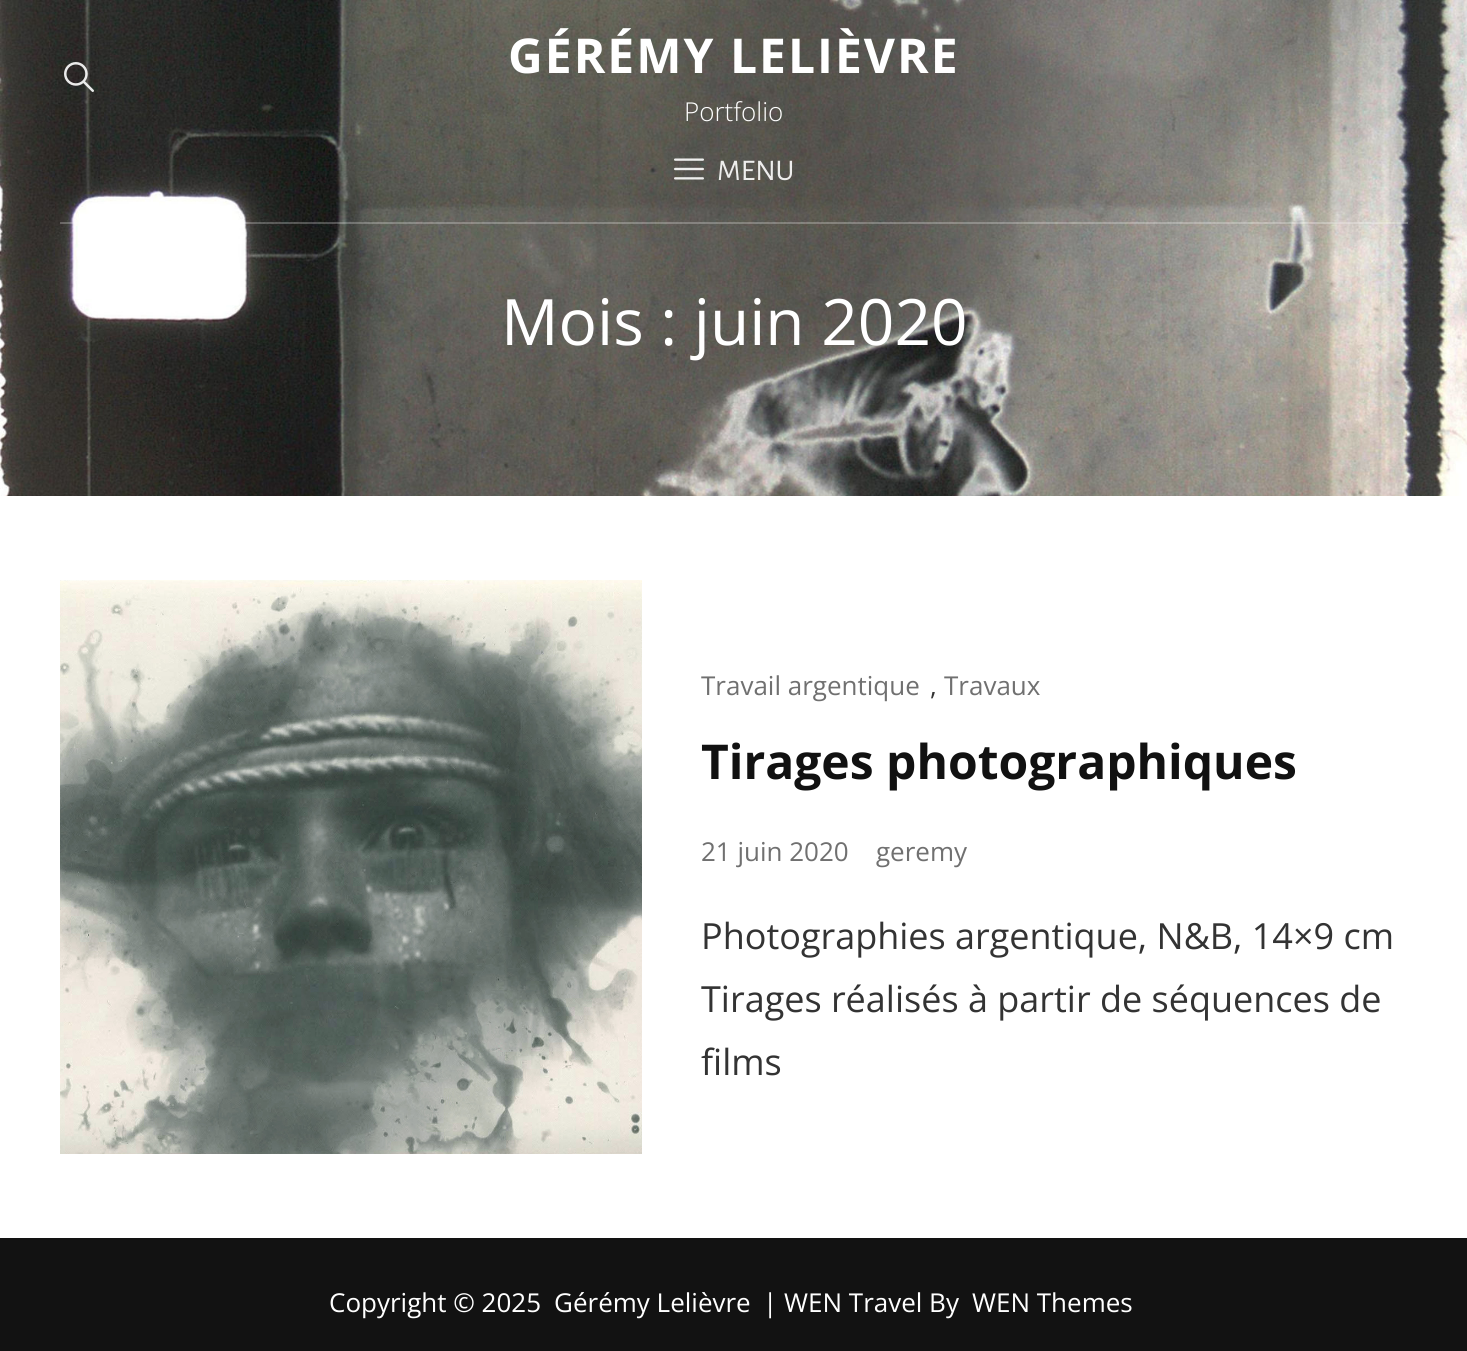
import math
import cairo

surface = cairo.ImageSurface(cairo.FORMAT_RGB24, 1467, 1351)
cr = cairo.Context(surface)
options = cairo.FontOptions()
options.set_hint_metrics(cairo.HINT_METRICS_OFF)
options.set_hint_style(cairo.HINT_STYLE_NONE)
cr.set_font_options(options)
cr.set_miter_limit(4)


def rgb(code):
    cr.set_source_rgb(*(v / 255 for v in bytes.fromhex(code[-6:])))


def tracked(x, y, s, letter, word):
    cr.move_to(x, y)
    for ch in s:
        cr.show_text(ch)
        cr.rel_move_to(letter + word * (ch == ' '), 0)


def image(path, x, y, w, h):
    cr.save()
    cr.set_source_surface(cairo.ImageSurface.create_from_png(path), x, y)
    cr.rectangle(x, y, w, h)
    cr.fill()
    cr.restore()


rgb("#ffffff")
cr.paint()
image("img/3.png", 0, 0, 1467, 496)
image("img/1.png", 64, 62, 30, 30)
image("img/2.png", 674, 158, 30, 22)
cr.set_source_rgba(1, 1, 1, 0.25)
cr.rectangle(60, 222, 1348, 2)
cr.fill()
image("img/4.png", 60, 580, 582, 574)
rgb("#121212")
cr.rectangle(0, 1238, 1467, 113)
cr.fill()
cr.select_font_face("Open Sans", cairo.FONT_SLANT_NORMAL, cairo.FONT_WEIGHT_BOLD)
cr.set_font_size(48)
rgb("#ffffff")
tracked(508, 73, "GÉRÉMY LELIÈVRE", 2, 0)
cr.select_font_face("Open Sans Light")
cr.set_font_size(26)
cr.move_to(684, 121)
cr.show_text("Portfolio")
cr.select_font_face("Alegreya Sans")
cr.set_font_size(30)
rgb("#eeeeed")
cr.move_to(717, 180)
cr.show_text("MENU")
cr.select_font_face("Open Sans")
cr.set_font_size(64)
rgb("#ffffff")
cr.move_to(501, 345)
cr.show_text("Mois : juin 2020")
cr.set_font_size(26)
rgb("#707070")
cr.move_to(701, 695)
cr.show_text("Travail argentique")
rgb("#333333")
cr.move_to(930, 695)
cr.show_text(",")
rgb("#707070")
cr.move_to(944, 695)
cr.show_text("Travaux")
cr.select_font_face("Open Sans", cairo.FONT_SLANT_NORMAL, cairo.FONT_WEIGHT_BOLD)
cr.set_font_size(48)
rgb("#111111")
cr.move_to(701, 779)
cr.show_text("Tirages photographiques")
cr.select_font_face("Open Sans")
cr.set_font_size(26)
rgb("#707070")
cr.move_to(701, 861)
cr.show_text("21 juin 2020")
cr.move_to(876, 861)
cr.show_text("geremy")
cr.set_font_size(36)
rgb("#333333")
for x, y, s in [
    (701, 949, "Photographies argentique, N&B, 14×9 cm"),
    (701, 1012, "Tirages réalisés à partir de séquences de"),
    (701, 1075, "films"),
]:
    cr.move_to(x, y)
    cr.show_text(s)
cr.set_font_size(26)
rgb("#ffffff")
for x, y, s in [
    (329, 1312, "Copyright © 2025"),
    (554, 1312, "Gérémy Lelièvre"),
    (763, 1312, "| WEN Travel By"),
    (972, 1312, "WEN Themes"),
]:
    cr.move_to(x, y)
    cr.show_text(s)
surface.write_to_png("page.png")
